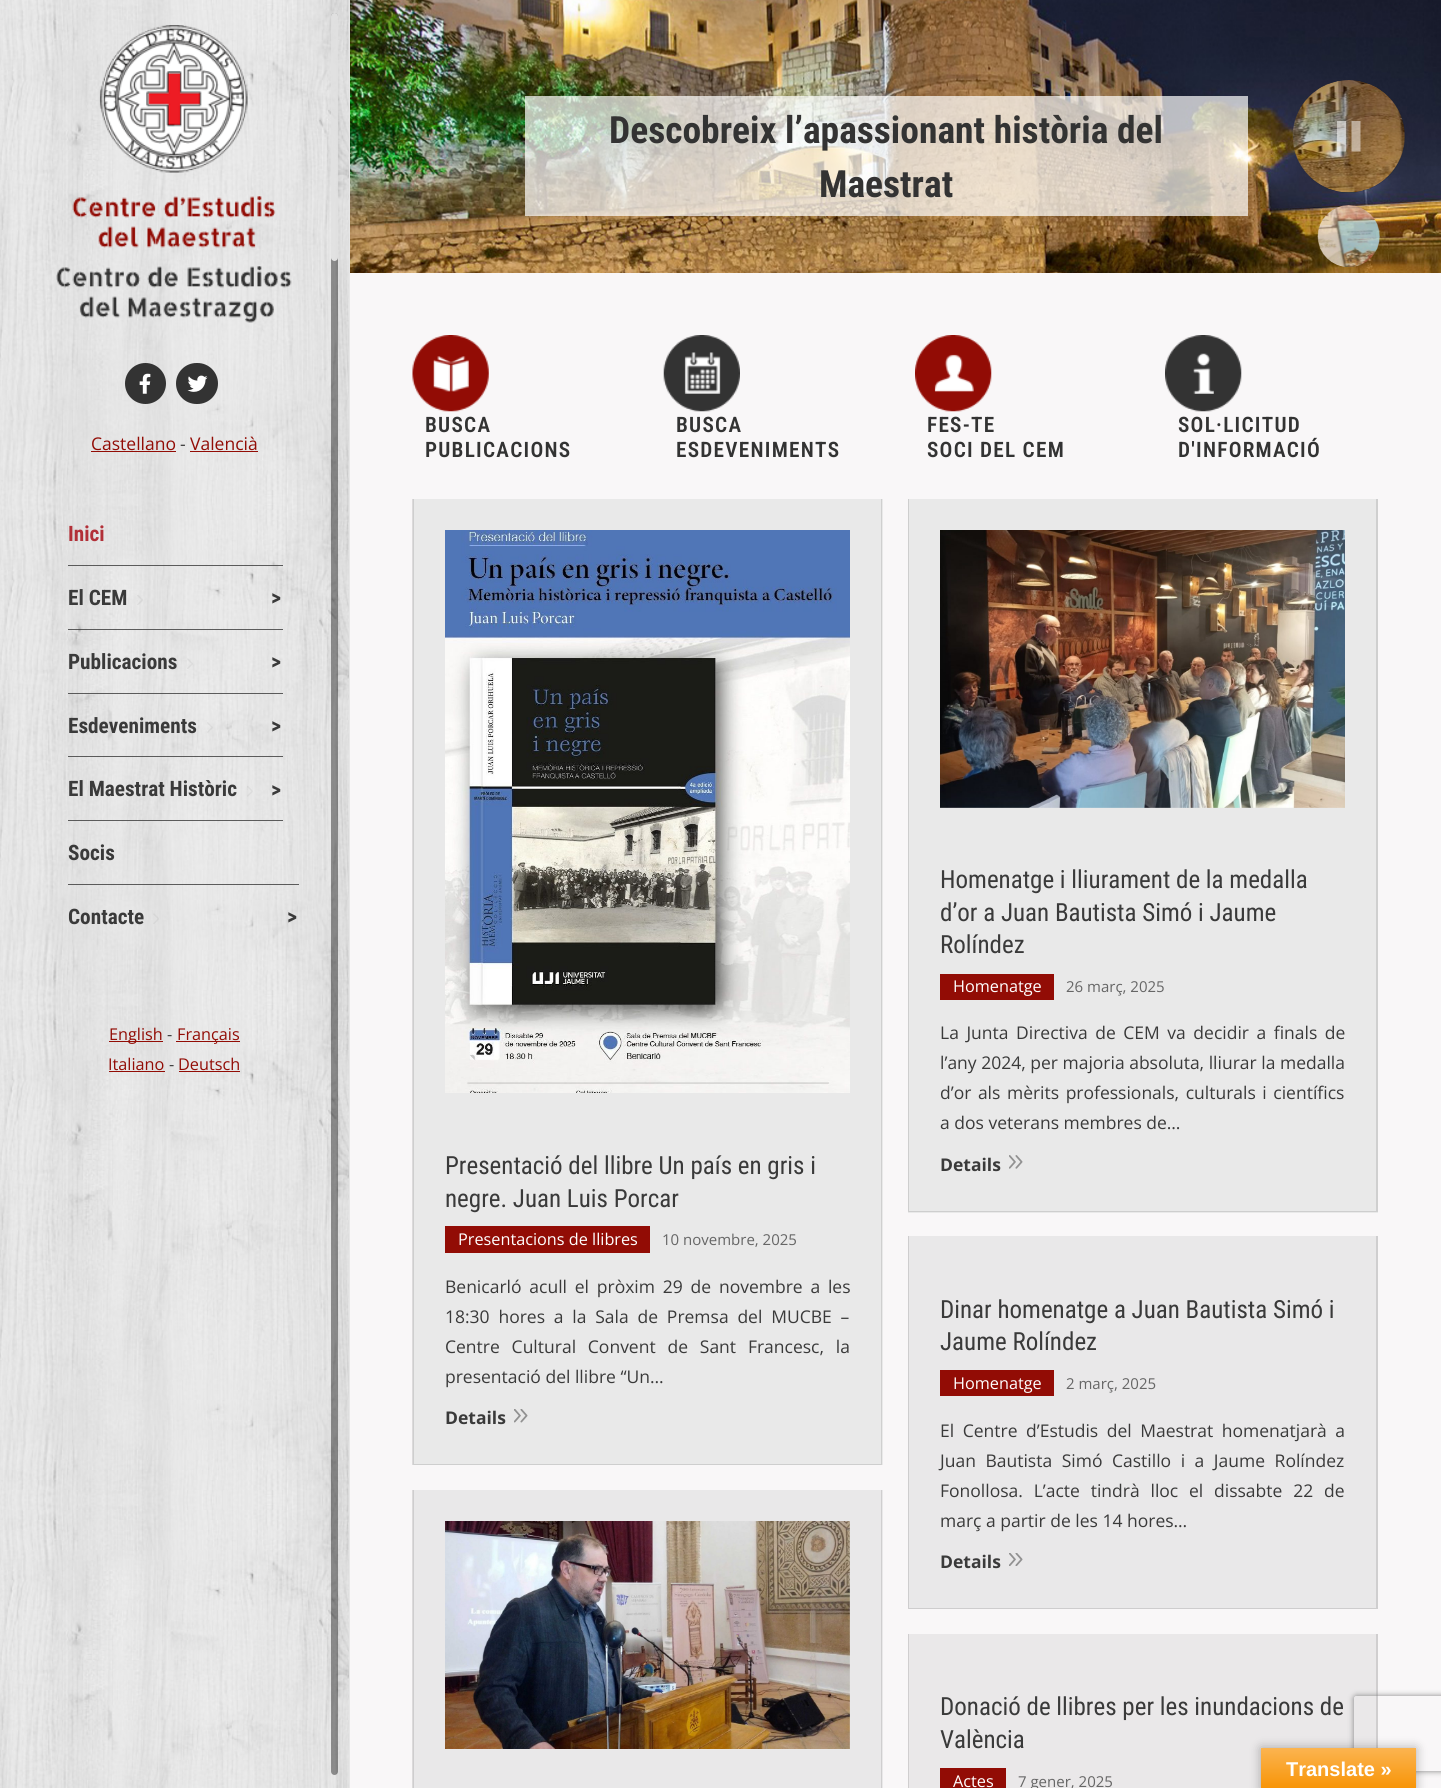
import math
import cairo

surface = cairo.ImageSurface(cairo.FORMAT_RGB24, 1441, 1788)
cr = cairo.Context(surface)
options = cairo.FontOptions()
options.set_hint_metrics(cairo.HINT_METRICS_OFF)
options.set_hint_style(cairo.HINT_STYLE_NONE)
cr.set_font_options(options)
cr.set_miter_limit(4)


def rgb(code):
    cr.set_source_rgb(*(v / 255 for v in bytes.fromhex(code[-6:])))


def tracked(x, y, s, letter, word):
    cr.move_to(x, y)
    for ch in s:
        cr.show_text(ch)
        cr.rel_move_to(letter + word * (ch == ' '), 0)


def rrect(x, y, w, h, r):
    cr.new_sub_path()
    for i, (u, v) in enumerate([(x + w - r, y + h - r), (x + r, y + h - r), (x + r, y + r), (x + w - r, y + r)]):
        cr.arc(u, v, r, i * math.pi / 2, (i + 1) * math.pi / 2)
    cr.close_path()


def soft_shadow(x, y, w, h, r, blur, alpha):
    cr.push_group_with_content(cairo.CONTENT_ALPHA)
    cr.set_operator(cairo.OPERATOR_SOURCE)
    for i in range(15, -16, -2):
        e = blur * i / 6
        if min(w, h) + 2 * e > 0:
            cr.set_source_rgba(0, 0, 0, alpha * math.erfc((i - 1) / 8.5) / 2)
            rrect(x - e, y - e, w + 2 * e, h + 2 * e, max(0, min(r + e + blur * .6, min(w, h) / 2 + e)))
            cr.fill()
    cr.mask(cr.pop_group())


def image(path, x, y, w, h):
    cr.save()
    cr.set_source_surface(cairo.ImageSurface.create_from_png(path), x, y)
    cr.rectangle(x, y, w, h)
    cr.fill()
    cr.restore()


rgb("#f9f7f8")
cr.paint()
image("img/1.png", 0, 0, 349, 1788)
rgb("#e7e7e7")
cr.rectangle(349, 0, 1, 1788)
cr.fill()
image("img/2.png", 56, 25, 236, 298)
rgb("#333333")
cr.arc(145.5, 383.5, 20.5, 0, 2 * math.pi)
cr.fill()
image("img/3.png", 139, 373, 12, 21)
rrect(176, 363, 42, 41, 20.5)
cr.fill()
image("img/4.png", 187, 375, 21, 17)
rgb("#920c05")
cr.rectangle(91, 451, 85, 1)
cr.rectangle(190, 451, 68, 1)
cr.fill()
cr.set_source_rgba(0.259, 0.259, 0.259, 0.84)
cr.rectangle(68, 565, 215, 1)
cr.fill()
image("img/5.png", 137, 595, 6, 10)
cr.rectangle(68, 629, 215, 1)
cr.fill()
image("img/6.png", 187, 658, 6, 11)
cr.rectangle(68, 693, 215, 1)
cr.fill()
image("img/7.png", 207, 722, 6, 11)
cr.rectangle(68, 756, 215, 1)
cr.fill()
image("img/8.png", 247, 786, 6, 11)
cr.rectangle(68, 820, 215, 1)
cr.fill()
cr.rectangle(68, 884, 231, 1)
cr.fill()
image("img/9.png", 153, 913, 6, 11)
for x, y, w, h, color in [
    (109, 1041, 54, 1, "#920c05"),
    (176, 1041, 64, 1, "#920c05"),
    (109, 1071, 56, 1, "#920c05"),
    (179, 1071, 61, 1, "#920c05"),
]:
    rgb(color)
    cr.rectangle(x, y, w, h)
    cr.fill()
cr.set_source_rgba(0, 0, 0, 0.4)
rrect(331, 13, 7, 1762, 3.5)
cr.fill()
cr.set_source_rgba(1, 1, 1, 0.75)
rrect(331, 13, 7, 248, 3.5)
cr.fill()
image("img/10.png", 350, 0, 1091, 273)
cr.set_source_rgba(1, 1, 1, 0.7)
cr.rectangle(525, 96, 723, 120)
cr.fill()
rgb("#000000")
soft_shadow(1293, 80, 112, 113, 56, 2, 0.05)
image("img/11.png", 1292, 80, 113, 113)
image("img/12.png", 1317, 205, 63, 62)
cr.set_source_rgba(0, 0, 0, 0.15)
rrect(1293, 80, 112, 113, 56)
cr.fill()
cr.set_source_rgba(1, 1, 1, 0.5)
cr.new_path()
cr.move_to(1346, 151.5)
cr.line_to(1337, 151.5)
cr.line_to(1337, 121)
cr.line_to(1346, 121)
cr.close_path()
cr.move_to(1360.5, 121)
cr.line_to(1351.5, 121)
cr.line_to(1351.5, 151.5)
cr.line_to(1360.5, 151.5)
cr.close_path()
cr.fill()
image("img/13.png", 412, 335, 77, 77)
image("img/14.png", 663, 335, 77, 77)
image("img/15.png", 915, 335, 77, 77)
image("img/16.png", 1165, 335, 77, 77)
rgb("#e9e9e9")
cr.rectangle(908, 499, 470, 714)
cr.fill()
rgb("#cfcfcf")
cr.new_path()
cr.move_to(1378, 499)
cr.line_to(1378, 1212)
cr.line_to(1376, 1211)
cr.line_to(1376, 499)
cr.close_path()
cr.fill()
cr.set_source_rgba(0.227, 0.227, 0.227, 0.15)
cr.new_path()
cr.move_to(1378, 1212)
cr.line_to(908, 1212)
cr.line_to(909, 1211)
cr.line_to(1376, 1211)
cr.close_path()
cr.fill()
cr.new_path()
cr.move_to(908, 1212)
cr.line_to(908, 499)
cr.line_to(909, 499)
cr.line_to(909, 1211)
cr.close_path()
cr.fill()
image("img/17.png", 940, 530, 405, 278)
rgb("#920c05")
cr.rectangle(940, 974, 114, 26)
cr.fill()
image("img/18.png", 1009, 1155, 14, 14)
rgb("#e9e9e9")
cr.rectangle(413, 499, 470, 966)
cr.fill()
rgb("#cfcfcf")
cr.new_path()
cr.move_to(882, 499)
cr.line_to(882, 1465)
cr.line_to(881, 1464)
cr.line_to(881, 499)
cr.close_path()
cr.fill()
cr.set_source_rgba(0.227, 0.227, 0.227, 0.15)
cr.new_path()
cr.move_to(882, 1465)
cr.line_to(412, 1465)
cr.line_to(414, 1464)
cr.line_to(881, 1464)
cr.close_path()
cr.fill()
cr.new_path()
cr.move_to(412, 1465)
cr.line_to(412, 499)
cr.line_to(414, 499)
cr.line_to(414, 1464)
cr.close_path()
cr.fill()
image("img/19.png", 445, 530, 405, 563)
rgb("#920c05")
cr.rectangle(445, 1226, 205, 27)
cr.fill()
image("img/20.png", 514, 1409, 14, 14)
rgb("#e9e8e9")
cr.rectangle(908, 1236, 470, 373)
cr.fill()
rgb("#cfcecf")
cr.new_path()
cr.move_to(1378, 1236)
cr.line_to(1378, 1609)
cr.line_to(1376, 1608)
cr.line_to(1376, 1236)
cr.close_path()
cr.fill()
cr.set_source_rgba(0.227, 0.227, 0.227, 0.15)
cr.new_path()
cr.move_to(1378, 1609)
cr.line_to(908, 1609)
cr.line_to(909, 1608)
cr.line_to(1376, 1608)
cr.close_path()
cr.fill()
cr.new_path()
cr.move_to(908, 1609)
cr.line_to(908, 1236)
cr.line_to(909, 1236)
cr.line_to(909, 1608)
cr.close_path()
cr.fill()
rgb("#920c05")
cr.rectangle(940, 1370, 114, 26)
cr.fill()
image("img/21.png", 1009, 1553, 14, 13)
rgb("#e9e8e9")
cr.rectangle(413, 1490, 470, 298)
cr.fill()
rgb("#cfcecf")
cr.new_path()
cr.move_to(882, 1490)
cr.line_to(882, 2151)
cr.line_to(881, 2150)
cr.line_to(881, 1490)
cr.close_path()
cr.fill()
cr.set_source_rgba(0.227, 0.227, 0.227, 0.15)
cr.new_path()
cr.move_to(412, 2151)
cr.line_to(412, 1490)
cr.line_to(414, 1490)
cr.line_to(414, 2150)
cr.close_path()
cr.fill()
image("img/22.png", 445, 1521, 405, 228)
rgb("#eae8e9")
cr.rectangle(909, 1634, 467, 154)
cr.fill()
rgb("#d0cecf")
cr.new_path()
cr.move_to(1378, 1634)
cr.line_to(1378, 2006)
cr.line_to(1376, 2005)
cr.line_to(1376, 1634)
cr.close_path()
cr.fill()
cr.new_path()
cr.move_to(908, 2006)
cr.line_to(908, 1634)
cr.line_to(909, 1634)
cr.line_to(909, 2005)
cr.close_path()
cr.fill()
rgb("#920c05")
cr.rectangle(940, 1768, 66, 20)
cr.fill()
cr.save()
cr.set_fill_rule(cairo.FILL_RULE_EVEN_ODD)
cr.new_path()
cr.move_to(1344, 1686)
cr.line_to(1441, 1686)
cr.line_to(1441, 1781)
cr.line_to(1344, 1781)
cr.close_path()
cr.move_to(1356.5, 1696)
cr.line_to(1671.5, 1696)
cr.curve_to(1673, 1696, 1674, 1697, 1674, 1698.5)
cr.line_to(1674, 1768.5)
cr.curve_to(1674, 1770, 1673, 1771, 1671.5, 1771)
cr.line_to(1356.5, 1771)
cr.curve_to(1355, 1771, 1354, 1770, 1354, 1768.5)
cr.line_to(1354, 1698.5)
cr.curve_to(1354, 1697, 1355, 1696, 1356.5, 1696)
cr.close_path()
cr.clip()
rgb("#808080")
soft_shadow(1354, 1696, 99, 75, 2.5, 3, 1)
cr.restore()
rgb("#000000")
soft_shadow(1261, 1748, 155, 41, 0, 5.5, 0.3)
gradient = cairo.LinearGradient(1339, 1748, 1339, 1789)
gradient.add_color_stop_rgba(0, 0.984, 0.706, 0.314, 1)
gradient.add_color_stop_rgba(1, 0.973, 0.58, 0.024, 1)
cr.set_source(gradient)
cr.rectangle(1261, 1748, 155, 40)
cr.fill()
cr.select_font_face("Open Sans")
cr.set_font_size(17.5)
rgb("#920c05")
cr.move_to(91, 450)
cr.show_text("Castellano")
rgb("#3a3a3a")
cr.move_to(180, 450)
cr.show_text("-")
rgb("#920c05")
cr.move_to(190, 450)
cr.show_text("Valencià")
cr.select_font_face("Roboto Condensed", cairo.FONT_SLANT_NORMAL, cairo.FONT_WEIGHT_BOLD)
cr.set_font_size(21.25)
rgb("#b23038")
cr.move_to(68, 541)
cr.show_text("Inici")
rgb("#3a3a3a")
cr.move_to(68, 605)
cr.show_text("El CEM")
cr.set_font_size(22)
cr.move_to(271, 605)
cr.show_text(">")
cr.set_font_size(21.25)
cr.move_to(68, 669)
cr.show_text("Publicacions")
cr.set_font_size(22)
cr.move_to(271, 669)
cr.show_text(">")
cr.set_font_size(21.25)
cr.move_to(68, 733)
cr.show_text("Esdeveniments")
cr.set_font_size(22)
cr.move_to(271, 733)
cr.show_text(">")
cr.set_font_size(21.25)
cr.move_to(68, 796)
cr.show_text("El Maestrat Històric")
cr.set_font_size(22)
cr.move_to(271, 797)
cr.show_text(">")
cr.set_font_size(21.25)
cr.move_to(68, 860)
cr.show_text("Socis")
cr.move_to(68, 924)
cr.show_text("Contacte")
cr.set_font_size(22)
cr.move_to(287, 924)
cr.show_text(">")
cr.select_font_face("Open Sans")
cr.set_font_size(16.25)
rgb("#920c05")
cr.move_to(109, 1040)
cr.show_text("English")
rgb("#3a3a3a")
cr.move_to(167, 1040)
cr.show_text("-")
rgb("#920c05")
cr.move_to(177, 1040)
cr.show_text("Français")
cr.move_to(108, 1070)
cr.show_text("Italiano")
rgb("#3a3a3a")
cr.move_to(169, 1070)
cr.show_text("-")
rgb("#920c05")
cr.move_to(178, 1070)
cr.show_text("Deutsch")
cr.select_font_face("Roboto Condensed", cairo.FONT_SLANT_NORMAL, cairo.FONT_WEIGHT_BOLD)
cr.set_font_size(37.5)
rgb("#333333")
cr.move_to(609, 143)
cr.show_text("Descobreix l’apassionant història del")
cr.move_to(819, 197)
cr.show_text("Maestrat")
cr.select_font_face("Roboto Condensed SemiBold")
cr.set_font_size(21.25)
for x, y, s in [
    (425, 432, "BUSCA"),
    (425, 457, "PUBLICACIONS"),
    (676, 432, "BUSCA"),
    (676, 457, "ESDEVENIMENTS"),
    (927, 432, "FES-TE"),
    (927, 457, "SOCI DEL CEM"),
    (1178, 432, "SOL·LICITUD"),
    (1178, 457, "D'INFORMACIÓ"),
]:
    tracked(x, y, s, 1.25, 0)
cr.select_font_face("Roboto Condensed")
cr.set_font_size(25)
rgb("#3a3a3a")
for x, y, s in [
    (940, 888, "Homenatge i lliurament de la medalla"),
    (940, 921, "d’or a Juan Bautista Simó i Jaume"),
    (940, 953, "Rolíndez"),
]:
    cr.move_to(x, y)
    cr.show_text(s)
cr.select_font_face("Open Sans")
cr.set_font_size(16.25)
rgb("#ffffff")
cr.move_to(953, 992)
cr.show_text("Homenatge")
cr.set_font_size(15)
rgb("#666666")
cr.move_to(1066, 992)
cr.show_text("26 març, 2025")
cr.set_font_size(17.5)
rgb("#3a3a3a")
tracked(940, 1039, "La Junta Directiva de CEM va decidir a finals de", 0, 3)
cr.move_to(940, 1069)
cr.show_text("l’any 2024, per majoria absoluta, lliurar la medalla")
tracked(940, 1099, "d’or als mèrits professionals, culturals i científics", 0, 2)
cr.move_to(940, 1129)
cr.show_text("a dos veterans membres de…")
cr.select_font_face("Open Sans", cairo.FONT_SLANT_NORMAL, cairo.FONT_WEIGHT_BOLD)
cr.move_to(940, 1171)
cr.show_text("Details")
cr.select_font_face("Roboto Condensed")
cr.set_font_size(25)
cr.move_to(445, 1174)
cr.show_text("Presentació del llibre Un país en gris i")
cr.move_to(445, 1207)
cr.show_text("negre. Juan Luis Porcar")
cr.select_font_face("Open Sans")
cr.set_font_size(16.25)
rgb("#ffffff")
cr.move_to(458, 1245)
cr.show_text("Presentacions de llibres")
cr.set_font_size(15)
rgb("#666666")
cr.move_to(662, 1245)
cr.show_text("10 novembre, 2025")
cr.set_font_size(17.5)
rgb("#3a3a3a")
tracked(445, 1293, "Benicarló acull el pròxim 29 de novembre a les", 0, 3.25)
tracked(445, 1323, "18:30 hores a la Sala de Premsa del MUCBE –", 0, 4.25)
tracked(445, 1353, "Centre Cultural Convent de Sant Francesc, la", 0, 7.25)
cr.move_to(445, 1383)
cr.show_text("presentació del llibre “Un…")
cr.select_font_face("Open Sans", cairo.FONT_SLANT_NORMAL, cairo.FONT_WEIGHT_BOLD)
cr.move_to(445, 1424)
cr.show_text("Details")
cr.select_font_face("Roboto Condensed")
cr.set_font_size(25)
cr.move_to(940, 1318)
cr.show_text("Dinar homenatge a Juan Bautista Simó i")
cr.move_to(940, 1350)
cr.show_text("Jaume Rolíndez")
cr.select_font_face("Open Sans")
cr.set_font_size(16.25)
rgb("#ffffff")
cr.move_to(953, 1389)
cr.show_text("Homenatge")
cr.set_font_size(15)
rgb("#666666")
cr.move_to(1066, 1389)
cr.show_text("2 març, 2025")
cr.set_font_size(17.5)
rgb("#3a3a3a")
tracked(940, 1437, "El Centre d’Estudis del Maestrat homenatjarà a", 0, 4)
tracked(940, 1467, "Juan Bautista Simó Castillo i a Jaume Rolíndez", 0, 5)
tracked(940, 1497, "Fonollosa. L’acte tindrà lloc el dissabte 22 de", 0, 6.25)
cr.move_to(940, 1527)
cr.show_text("març a partir de les 14 hores…")
cr.select_font_face("Open Sans", cairo.FONT_SLANT_NORMAL, cairo.FONT_WEIGHT_BOLD)
cr.move_to(940, 1568)
cr.show_text("Details")
cr.select_font_face("Roboto Condensed")
cr.set_font_size(25)
cr.move_to(940, 1715)
cr.show_text("Donació de llibres per les inundacions de")
cr.move_to(940, 1748)
cr.show_text("València")
cr.select_font_face("Open Sans")
cr.set_font_size(16.25)
rgb("#ffffff")
cr.move_to(953, 1787)
cr.show_text("Actes")
cr.set_font_size(15)
rgb("#666666")
cr.move_to(1018, 1787)
cr.show_text("7 gener, 2025")
cr.select_font_face("Liberation Sans", cairo.FONT_SLANT_NORMAL, cairo.FONT_WEIGHT_BOLD)
cr.set_font_size(20)
rgb("#ffffff")
cr.move_to(1286, 1776)
cr.show_text("Translate »")
surface.write_to_png("page.png")
